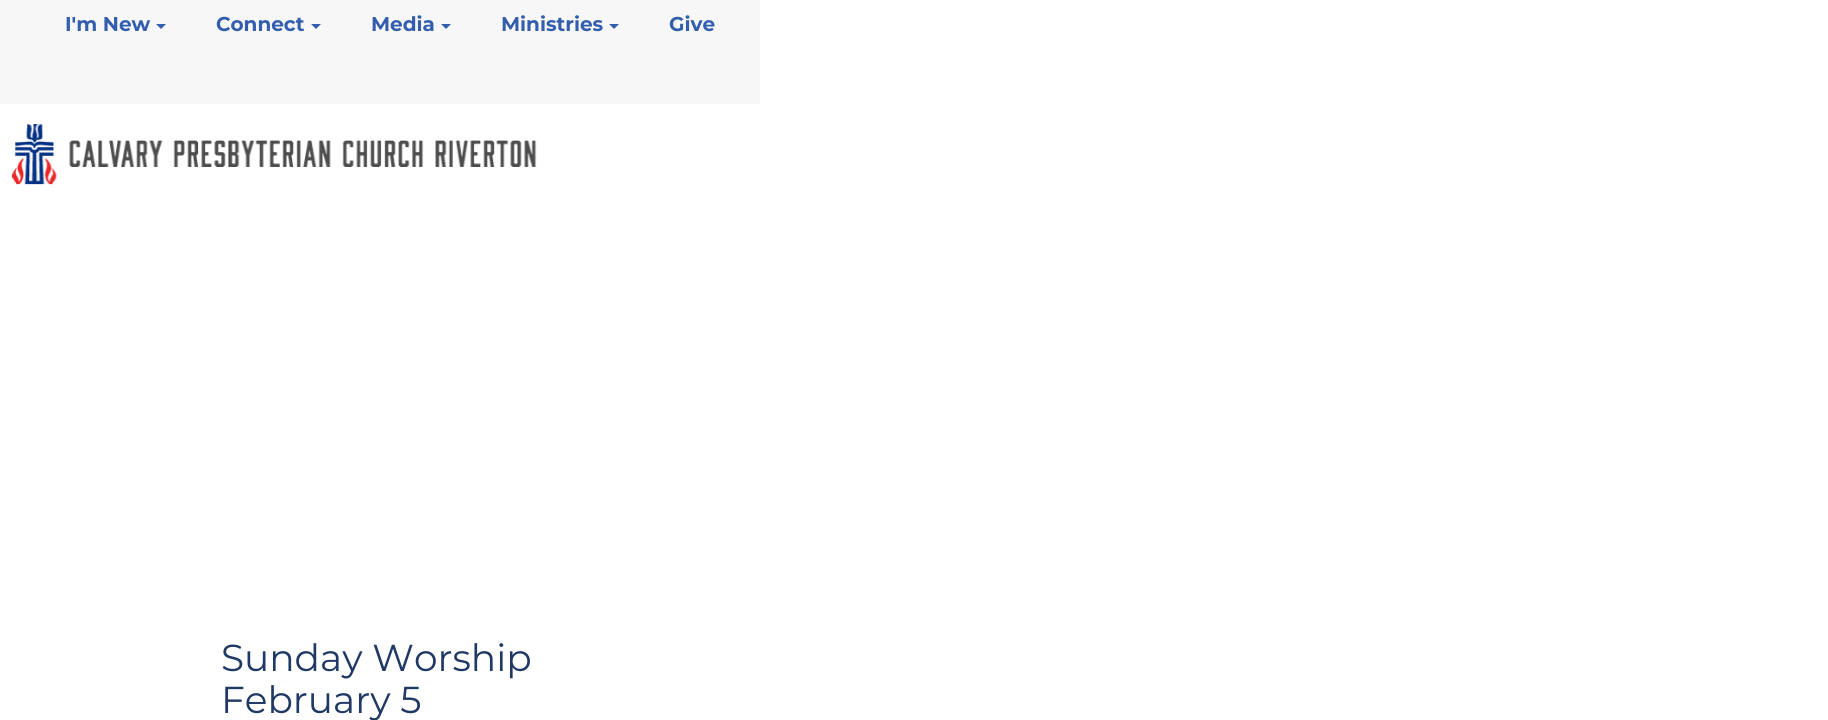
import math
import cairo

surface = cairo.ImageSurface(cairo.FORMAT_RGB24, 1828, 720)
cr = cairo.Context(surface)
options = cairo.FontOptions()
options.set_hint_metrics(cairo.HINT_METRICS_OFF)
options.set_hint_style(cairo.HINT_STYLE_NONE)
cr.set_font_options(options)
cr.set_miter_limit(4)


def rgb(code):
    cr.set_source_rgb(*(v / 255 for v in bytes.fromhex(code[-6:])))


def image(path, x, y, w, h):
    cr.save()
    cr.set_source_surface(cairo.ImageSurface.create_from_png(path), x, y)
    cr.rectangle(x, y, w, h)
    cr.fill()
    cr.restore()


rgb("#ffffff")
cr.paint()
rgb("#f7f7f7")
cr.rectangle(0, 0, 760, 104)
cr.fill()
rgb("#335eae")
cr.new_path()
cr.move_to(156, 24)
cr.line_to(166, 24)
cr.line_to(161, 29)
cr.close_path()
cr.fill()
cr.new_path()
cr.move_to(311, 24)
cr.line_to(321, 24)
cr.line_to(316, 29)
cr.close_path()
cr.fill()
cr.new_path()
cr.move_to(441, 24)
cr.line_to(451, 24)
cr.line_to(446, 29)
cr.close_path()
cr.fill()
cr.new_path()
cr.move_to(609, 24)
cr.line_to(619, 24)
cr.line_to(614, 29)
cr.close_path()
cr.fill()
image("img/1.png", 12, 124, 525, 61)
cr.select_font_face("Montserrat Thin")
cr.set_font_size(20)
for x, y, s in [
    (65, 31, "I'm New"),
    (216, 31, "Connect"),
    (371, 31, "Media"),
    (501, 31, "Ministries"),
    (669, 31, "Give"),
]:
    cr.move_to(x, y)
    cr.show_text(s)
cr.select_font_face("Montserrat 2 Thin")
cr.set_font_size(37.5)
rgb("#203864")
cr.move_to(221, 671)
cr.show_text("Sunday Worship")
cr.move_to(221, 713)
cr.show_text("February 5")
surface.write_to_png("page.png")
